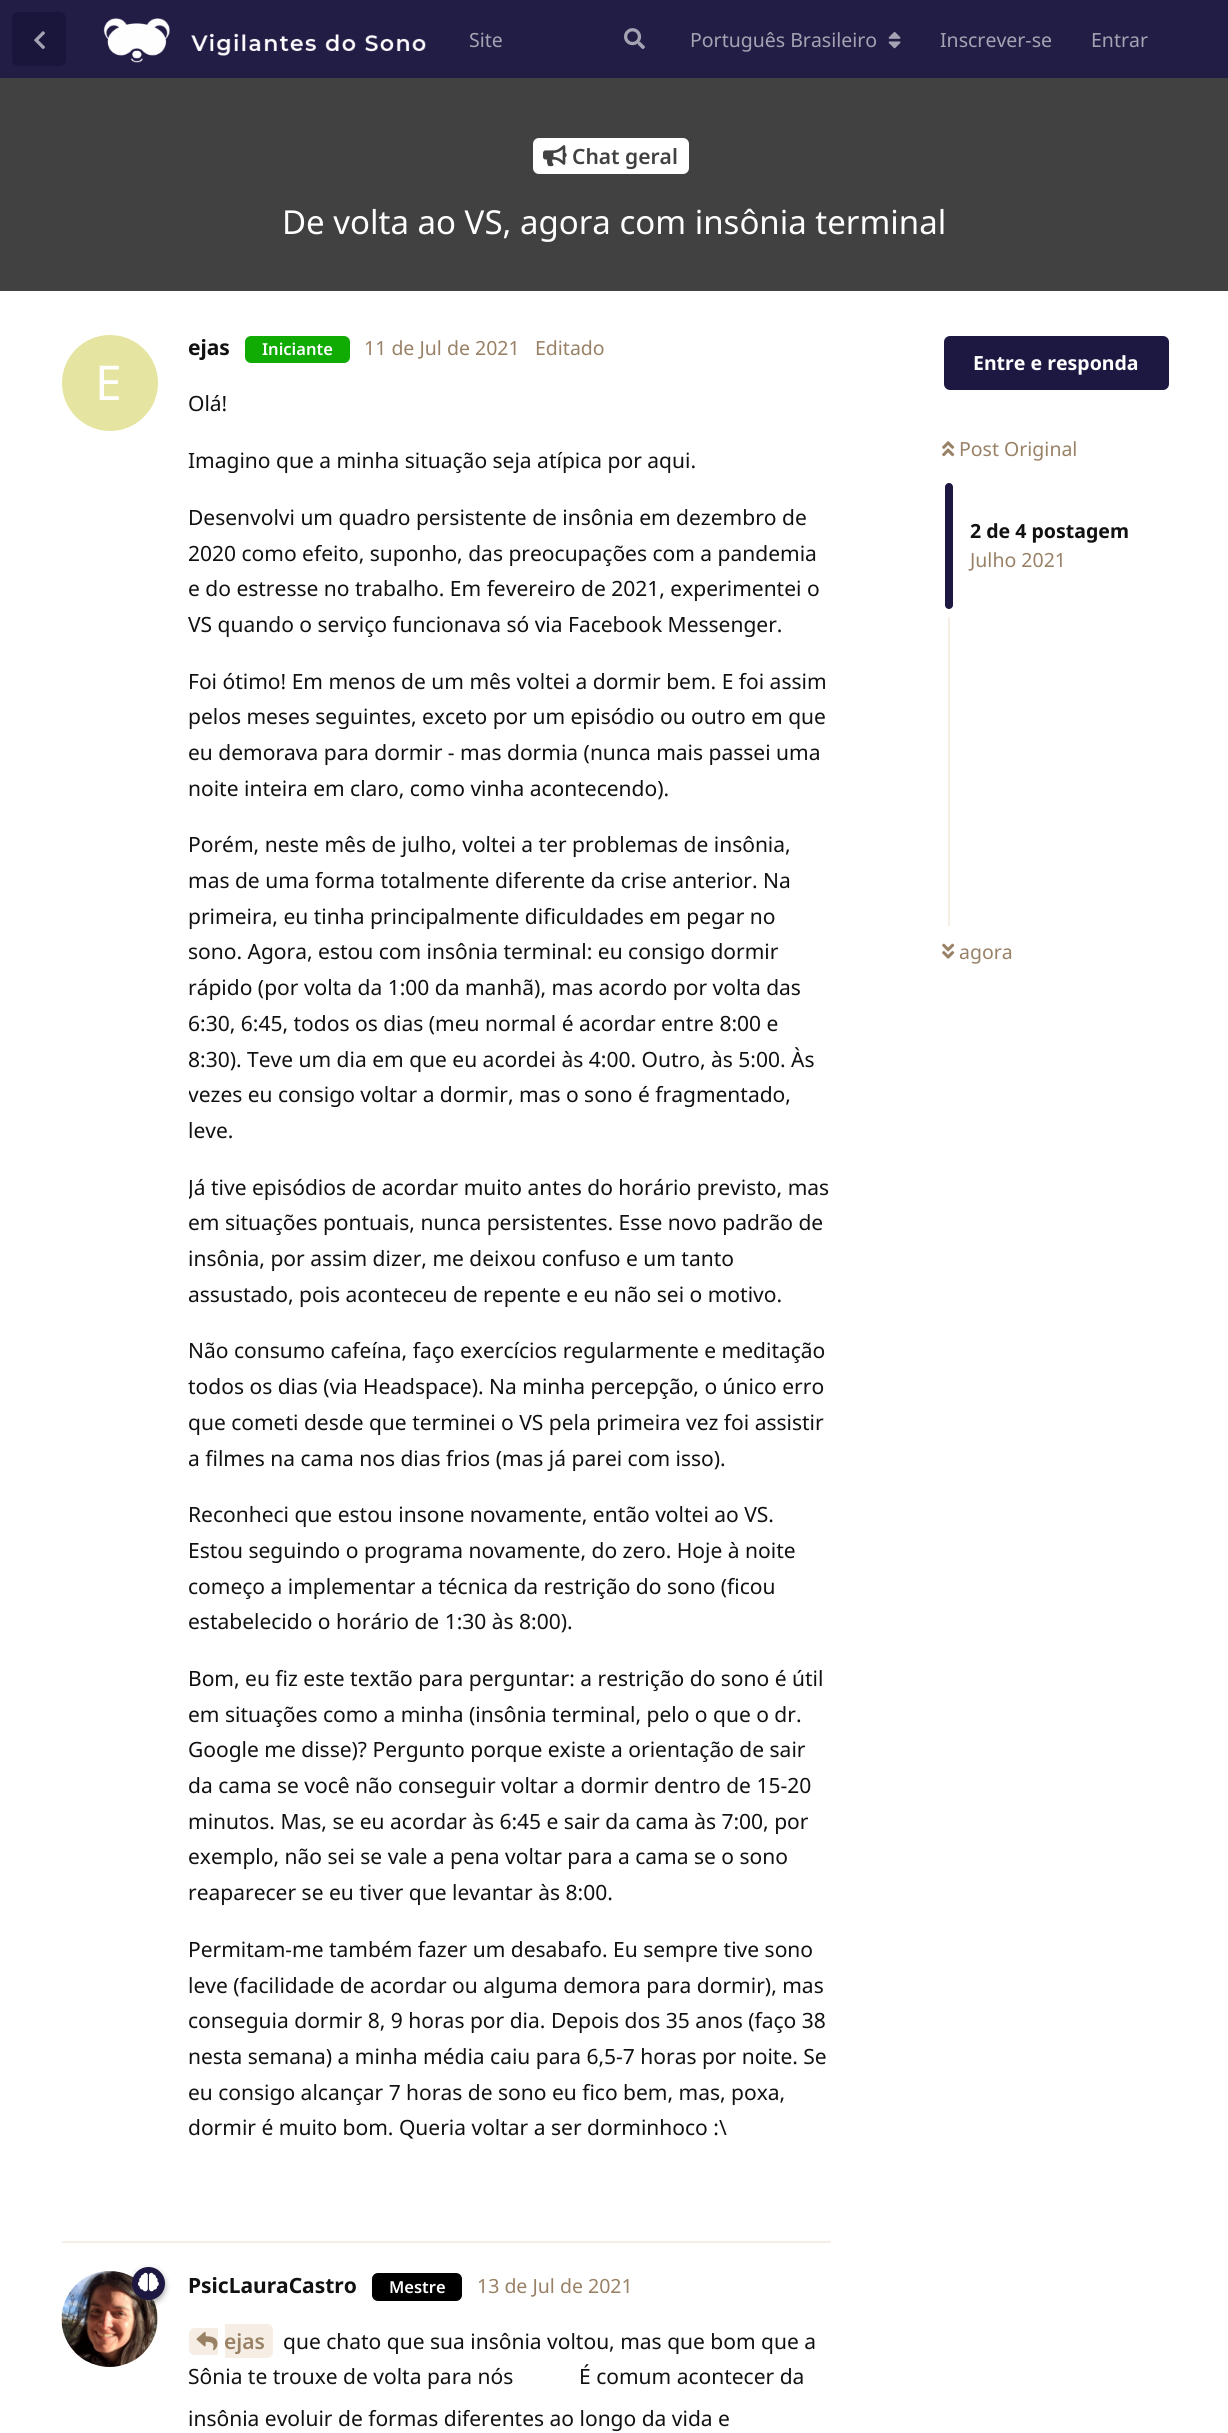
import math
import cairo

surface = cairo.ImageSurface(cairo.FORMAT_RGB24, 1228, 2433)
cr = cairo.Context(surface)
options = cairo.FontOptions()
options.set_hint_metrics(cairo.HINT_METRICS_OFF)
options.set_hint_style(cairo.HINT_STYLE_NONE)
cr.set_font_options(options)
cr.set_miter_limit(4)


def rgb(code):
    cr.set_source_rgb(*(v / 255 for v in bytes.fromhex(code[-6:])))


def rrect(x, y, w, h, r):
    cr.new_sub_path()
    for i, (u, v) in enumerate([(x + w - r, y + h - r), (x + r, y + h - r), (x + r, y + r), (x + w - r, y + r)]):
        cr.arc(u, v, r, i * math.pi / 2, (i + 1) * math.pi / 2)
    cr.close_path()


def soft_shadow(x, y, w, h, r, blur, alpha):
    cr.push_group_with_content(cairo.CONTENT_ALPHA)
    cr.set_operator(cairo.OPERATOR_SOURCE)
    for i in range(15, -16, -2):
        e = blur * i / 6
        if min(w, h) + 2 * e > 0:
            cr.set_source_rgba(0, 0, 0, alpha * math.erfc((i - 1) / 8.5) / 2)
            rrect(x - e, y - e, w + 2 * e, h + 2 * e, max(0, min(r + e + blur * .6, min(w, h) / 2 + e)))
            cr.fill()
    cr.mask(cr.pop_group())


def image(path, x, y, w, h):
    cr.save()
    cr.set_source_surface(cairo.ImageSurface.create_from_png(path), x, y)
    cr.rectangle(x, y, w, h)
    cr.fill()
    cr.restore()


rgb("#ffffff")
cr.paint()
rgb("#221d45")
cr.rectangle(0, 0, 1228, 78)
cr.fill()
rgb("#1a163b")
rrect(12, 12, 54, 54, 6)
cr.fill()
image("img/1.png", 34, 31, 11, 18)
image("img/2.png", 103, 18, 323, 45)
image("img/3.png", 624, 28, 21, 22)
image("img/4.png", 888, 32, 13, 17)
rgb("#414141")
cr.rectangle(0, 78, 1228, 213)
cr.fill()
rgb("#ffffff")
rrect(533, 138, 156, 36, 6)
cr.fill()
image("img/5.png", 543, 145, 24, 22)
rgb("#f6eee4")
cr.rectangle(62, 2241, 769, 2)
cr.fill()
rgb("#e5e4a0")
cr.arc(110, 383, 48, 0, 2 * math.pi)
cr.fill()
rgb("#10ab03")
rrect(245, 336, 105, 27, 6)
cr.fill()
rgb("#f6eee4")
cr.arc(110, 2319, 48, 0, 2 * math.pi)
cr.fill()
image("img/7.png", 61, 2271, 97, 96)
rgb("#000000")
soft_shadow(132, 2270, 33, 33, 16.5, 3, 0.35)
rgb("#1d1841")
cr.arc(148.5, 2283.5, 16.5, 0, 2 * math.pi)
cr.fill()
image("img/6.png", 138, 2272, 21, 20)
rgb("#000000")
rrect(372, 2273, 90, 28, 6)
cr.fill()
rgb("#f6eee4")
cr.new_path()
cr.move_to(195, 2328)
cr.line_to(218, 2328)
cr.line_to(218, 2355)
cr.line_to(195, 2355)
cr.curve_to(191.5, 2355, 189, 2352.5, 189, 2349)
cr.line_to(189, 2334)
cr.curve_to(189, 2330.5, 191.5, 2328, 195, 2328)
cr.close_path()
cr.fill()
cr.new_path()
cr.move_to(225, 2324)
cr.line_to(267, 2324)
cr.curve_to(270.5, 2324, 273, 2326.5, 273, 2330)
cr.line_to(273, 2352)
cr.curve_to(273, 2355.5, 270.5, 2358, 267, 2358)
cr.line_to(225, 2358)
cr.close_path()
cr.fill()
image("img/8.png", 196, 2332, 22, 19)
rgb("#1d1841")
rrect(944, 336, 225, 54, 6)
cr.fill()
image("img/9.png", 942, 441, 13, 16)
rrect(945, 483, 8, 126, 4)
cr.fill()
rgb("#f6eee4")
cr.rectangle(948, 617, 2, 309)
cr.fill()
image("img/10.png", 942, 943, 13, 16)
cr.select_font_face("Noto Sans")
cr.set_font_size(19.5)
rgb("#a5a3b3")
for x, y, s in [
    (469, 47, "Site"),
    (690, 47, "Português Brasileiro"),
    (940, 47, "Inscrever-se"),
    (1091, 47, "Entrar"),
]:
    cr.move_to(x, y)
    cr.show_text(s)
cr.select_font_face("Noto Sans SemiBold")
cr.set_font_size(21)
rgb("#414141")
cr.move_to(572, 164)
cr.show_text("Chat geral")
cr.select_font_face("Noto Sans")
cr.set_font_size(33)
rgb("#ffffff")
cr.move_to(282, 234)
cr.show_text("De volta ao VS, agora com insônia terminal")
cr.select_font_face("Noto Sans", cairo.FONT_SLANT_NORMAL, cairo.FONT_WEIGHT_BOLD)
cr.set_font_size(21)
rgb("#111111")
cr.move_to(188, 355)
cr.show_text("ejas")
cr.select_font_face("Noto Sans")
cr.set_font_size(48)
rgb("#ffffff")
cr.move_to(95, 400)
cr.show_text("E")
cr.select_font_face("Noto Sans SemiBold")
cr.set_font_size(16.5)
cr.move_to(262, 355)
cr.show_text("Iniciante")
cr.select_font_face("Noto Sans")
cr.set_font_size(19.5)
rgb("#998166")
cr.move_to(364, 355)
cr.show_text("11 de Jul de 2021")
cr.move_to(535, 355)
cr.show_text("Editado")
cr.set_font_size(21)
rgb("#111111")
for x, y, s in [
    (188, 411, "Olá!"),
    (188, 468, "Imagino que a minha situação seja atípica por aqui."),
    (188, 525, "Desenvolvi um quadro persistente de insônia em dezembro de"),
    (188, 561, "2020 como efeito, suponho, das preocupações com a pandemia"),
    (188, 596, "e do estresse no trabalho. Em fevereiro de 2021, experimentei o"),
    (188, 632, "VS quando o serviço funcionava só via Facebook Messenger."),
    (188, 689, "Foi ótimo! Em menos de um mês voltei a dormir bem. E foi assim"),
    (188, 724, "pelos meses seguintes, exceto por um episódio ou outro em que"),
    (188, 760, "eu demorava para dormir - mas dormia (nunca mais passei uma"),
    (188, 796, "noite inteira em claro, como vinha acontecendo)."),
    (188, 852, "Porém, neste mês de julho, voltei a ter problemas de insônia,"),
    (188, 888, "mas de uma forma totalmente diferente da crise anterior. Na"),
    (188, 924, "primeira, eu tinha principalmente dificuldades em pegar no"),
    (188, 959, "sono. Agora, estou com insônia terminal: eu consigo dormir"),
    (188, 995, "rápido (por volta da 1:00 da manhã), mas acordo por volta das"),
    (188, 1031, "6:30, 6:45, todos os dias (meu normal é acordar entre 8:00 e"),
    (188, 1067, "8:30). Teve um dia em que eu acordei às 4:00. Outro, às 5:00. Às"),
]:
    cr.move_to(x, y)
    cr.show_text(s)
cr.save()
cr.rectangle(189, 386, 642, 1780)
cr.clip()
cr.move_to(188, 1102)
cr.show_text("vezes eu consigo voltar a dormir, mas o sono é fragmentado,")
cr.restore()
cr.move_to(188, 1138)
cr.show_text("leve.")
cr.save()
cr.rectangle(189, 386, 642, 1780)
cr.clip()
cr.move_to(188, 1195)
cr.show_text("Já tive episódios de acordar muito antes do horário previsto, mas")
cr.restore()
for x, y, s in [
    (188, 1230, "em situações pontuais, nunca persistentes. Esse novo padrão de"),
    (188, 1266, "insônia, por assim dizer, me deixou confuso e um tanto"),
    (188, 1302, "assustado, pois aconteceu de repente e eu não sei o motivo."),
    (188, 1358, "Não consumo cafeína, faço exercícios regularmente e meditação"),
    (188, 1394, "todos os dias (via Headspace). Na minha percepção, o único erro"),
    (188, 1430, "que cometi desde que terminei o VS pela primeira vez foi assistir"),
    (188, 1466, "a filmes na cama nos dias frios (mas já parei com isso)."),
    (188, 1522, "Reconheci que estou insone novamente, então voltei ao VS."),
    (188, 1558, "Estou seguindo o programa novamente, do zero. Hoje à noite"),
    (188, 1594, "começo a implementar a técnica da restrição do sono (ficou"),
    (188, 1629, "estabelecido o horário de 1:30 às 8:00)."),
    (188, 1686, "Bom, eu fiz este textão para perguntar: a restrição do sono é útil"),
    (188, 1722, "em situações como a minha (insônia terminal, pelo o que o dr."),
    (188, 1757, "Google me disse)? Pergunto porque existe a orientação de sair"),
    (188, 1793, "da cama se você não conseguir voltar a dormir dentro de 15-20"),
    (188, 1829, "minutos. Mas, se eu acordar às 6:45 e sair da cama às 7:00, por"),
    (188, 1864, "exemplo, não sei se vale a pena voltar para a cama se o sono"),
    (188, 1900, "reaparecer se eu tiver que levantar às 8:00."),
    (188, 1957, "Permitam-me também fazer um desabafo. Eu sempre tive sono"),
    (188, 1993, "leve (facilidade de acordar ou alguma demora para dormir), mas"),
    (188, 2028, "conseguia dormir 8, 9 horas por dia. Depois dos 35 anos (faço 38"),
    (188, 2064, "nesta semana) a minha média caiu para 6,5-7 horas por noite. Se"),
    (188, 2100, "eu consigo alcançar 7 horas de sono eu fico bem, mas, poxa,"),
    (188, 2135, "dormir é muito bom. Queria voltar a ser dorminhoco :\\"),
]:
    cr.move_to(x, y)
    cr.show_text(s)
cr.select_font_face("Noto Sans", cairo.FONT_SLANT_NORMAL, cairo.FONT_WEIGHT_BOLD)
cr.move_to(188, 2293)
cr.show_text("PsicLauraCastro")
cr.select_font_face("Noto Sans SemiBold")
cr.set_font_size(16.5)
rgb("#ffffff")
cr.move_to(389, 2293)
cr.show_text("Mestre")
cr.select_font_face("Noto Sans")
cr.set_font_size(19.5)
rgb("#998166")
cr.move_to(477, 2293)
cr.show_text("13 de Jul de 2021")
cr.select_font_face("Noto Sans SemiBold")
cr.set_font_size(21)
cr.move_to(224, 2349)
cr.show_text("ejas")
cr.select_font_face("Noto Sans")
rgb("#111111")
for x, y, s in [
    (283, 2349, "que chato que sua insônia voltou, mas que bom que a"),
    (188, 2384, "Sônia te trouxe de volta para nós"),
    (579, 2384, "É comum acontecer da"),
    (188, 2426, "insônia evoluir de formas diferentes ao longo da vida e"),
]:
    cr.move_to(x, y)
    cr.show_text(s)
cr.select_font_face("Noto Sans", cairo.FONT_SLANT_NORMAL, cairo.FONT_WEIGHT_BOLD)
cr.set_font_size(19.5)
rgb("#ffffff")
cr.move_to(973, 370)
cr.show_text("Entre e responda")
cr.select_font_face("Noto Sans")
rgb("#998166")
cr.move_to(959, 456)
cr.show_text("Post Original")
cr.select_font_face("Noto Sans", cairo.FONT_SLANT_NORMAL, cairo.FONT_WEIGHT_BOLD)
rgb("#111111")
cr.move_to(970, 538)
cr.show_text("2 de 4 postagem")
cr.select_font_face("Noto Sans")
rgb("#998166")
cr.move_to(970, 567)
cr.show_text("Julho 2021")
cr.move_to(959, 959)
cr.show_text("agora")
surface.write_to_png("page.png")
